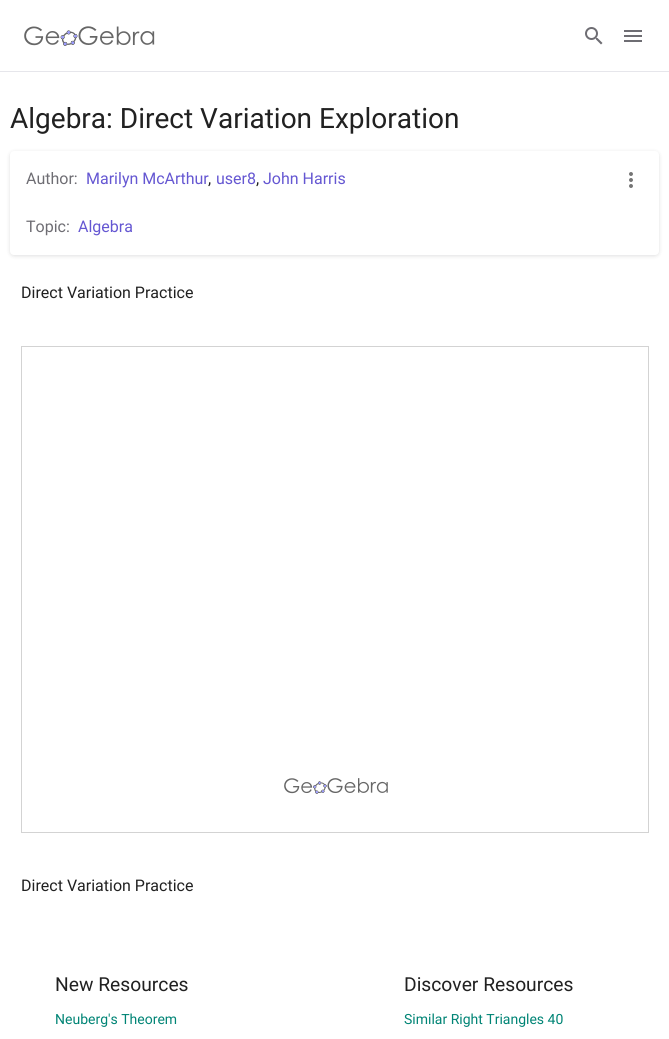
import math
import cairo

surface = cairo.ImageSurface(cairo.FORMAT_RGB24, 669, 1039)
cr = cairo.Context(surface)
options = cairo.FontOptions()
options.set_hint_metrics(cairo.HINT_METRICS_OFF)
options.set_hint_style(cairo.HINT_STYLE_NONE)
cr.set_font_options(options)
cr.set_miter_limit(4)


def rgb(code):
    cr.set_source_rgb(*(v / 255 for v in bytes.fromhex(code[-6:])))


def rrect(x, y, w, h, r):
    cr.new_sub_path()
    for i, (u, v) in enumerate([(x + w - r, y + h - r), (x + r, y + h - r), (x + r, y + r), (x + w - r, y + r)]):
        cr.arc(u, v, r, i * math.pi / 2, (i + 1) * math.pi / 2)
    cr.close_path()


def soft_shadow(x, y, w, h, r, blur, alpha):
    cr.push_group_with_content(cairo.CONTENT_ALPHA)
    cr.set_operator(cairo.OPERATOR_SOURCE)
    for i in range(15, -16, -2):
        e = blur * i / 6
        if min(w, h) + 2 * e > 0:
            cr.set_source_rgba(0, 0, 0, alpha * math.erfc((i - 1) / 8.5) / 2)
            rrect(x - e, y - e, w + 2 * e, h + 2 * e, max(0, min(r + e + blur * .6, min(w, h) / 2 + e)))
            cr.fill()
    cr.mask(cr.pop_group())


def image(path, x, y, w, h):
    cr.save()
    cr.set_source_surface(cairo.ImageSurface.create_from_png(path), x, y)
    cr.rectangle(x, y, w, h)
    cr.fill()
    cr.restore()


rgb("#ffffff")
cr.paint()
rgb("#e6e6eb")
cr.rectangle(0, 71, 669, 1)
cr.fill()
image("img/1.png", 24, 26, 131, 20)
image("img/2.png", 585, 27, 18, 18)
image("img/3.png", 624, 30, 18, 12)
rgb("#1c1c1f")
soft_shadow(10, 152, 649, 104, 4, 2, 0.14)
rgb("#ffffff")
rrect(10, 151, 649, 104, 4)
cr.fill()
image("img/4.png", 629, 172, 4, 16)
image("img/5.png", 284, 778, 104, 16)
cr.rectangle(21.5, 346.5, 627, 486)
rgb("#d3d3d3")
cr.set_line_width(1)
cr.stroke()
cr.select_font_face("Roboto")
cr.set_font_size(28)
rgb("#212121")
cr.move_to(10, 128)
cr.show_text("Algebra: Direct Variation Exploration")
cr.set_font_size(16)
rgb("#6e6d73")
cr.move_to(26, 184)
cr.show_text("Author:")
rgb("#6557d2")
cr.move_to(86, 184)
cr.show_text("Marilyn McArthur")
rgb("#212121")
cr.move_to(208, 184)
cr.show_text(",")
rgb("#6557d2")
cr.move_to(216, 184)
cr.show_text("user8")
rgb("#212121")
cr.move_to(256, 184)
cr.show_text(",")
rgb("#6557d2")
cr.move_to(263, 184)
cr.show_text("John Harris")
rgb("#6e6d73")
cr.move_to(26, 232)
cr.show_text("Topic:")
rgb("#6557d2")
cr.move_to(78, 232)
cr.show_text("Algebra")
rgb("#212121")
cr.move_to(21, 298)
cr.show_text("Direct Variation Practice")
cr.move_to(21, 891)
cr.show_text("Direct Variation Practice")
cr.set_font_size(19.25)
cr.move_to(55, 991)
cr.show_text("New Resources")
cr.set_font_size(14)
rgb("#008475")
cr.move_to(55, 1024)
cr.show_text("Neuberg's Theorem")
cr.set_font_size(19.25)
rgb("#212121")
cr.move_to(404, 991)
cr.show_text("Discover Resources")
cr.set_font_size(14)
rgb("#008475")
cr.move_to(404, 1024)
cr.show_text("Similar Right Triangles 40")
surface.write_to_png("page.png")
